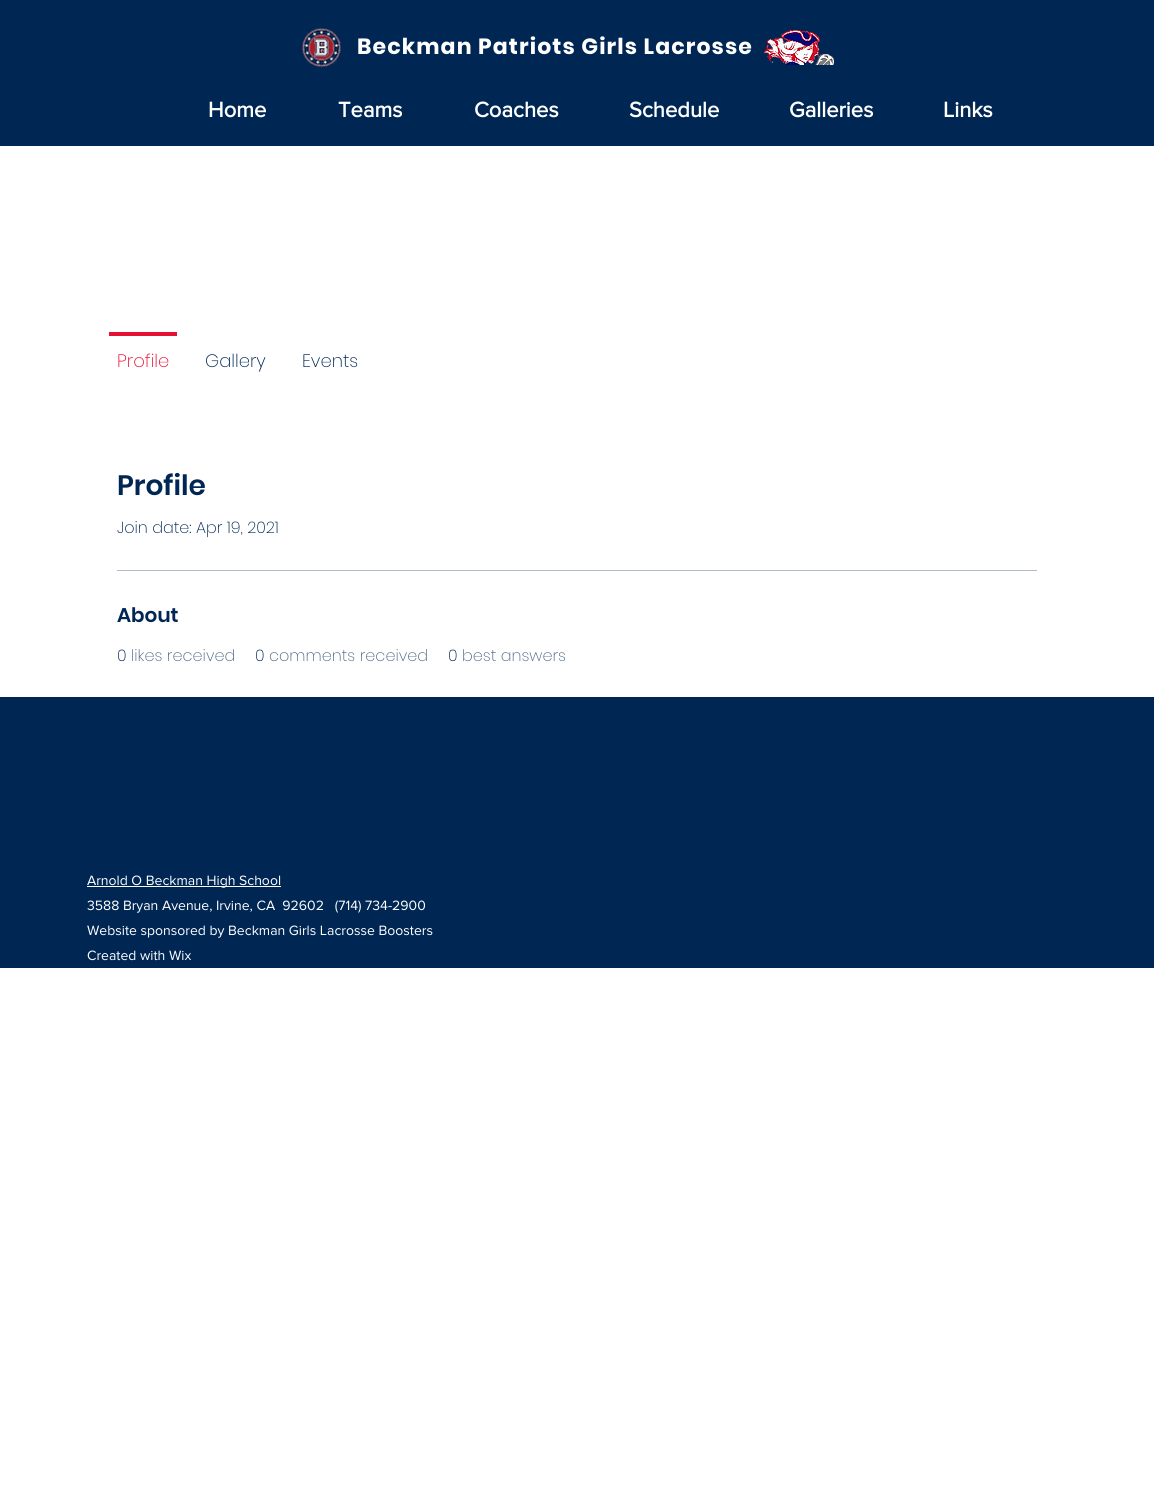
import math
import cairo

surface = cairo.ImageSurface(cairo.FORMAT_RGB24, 1154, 1503)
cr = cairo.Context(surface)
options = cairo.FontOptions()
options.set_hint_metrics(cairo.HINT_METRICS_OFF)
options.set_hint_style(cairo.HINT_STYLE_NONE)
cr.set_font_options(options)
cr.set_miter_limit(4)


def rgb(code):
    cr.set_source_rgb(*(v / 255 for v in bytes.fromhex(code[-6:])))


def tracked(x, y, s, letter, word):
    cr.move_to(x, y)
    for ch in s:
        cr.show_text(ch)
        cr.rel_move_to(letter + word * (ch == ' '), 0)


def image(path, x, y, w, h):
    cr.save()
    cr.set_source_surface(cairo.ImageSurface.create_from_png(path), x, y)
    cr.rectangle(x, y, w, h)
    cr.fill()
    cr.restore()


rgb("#ffffff")
cr.paint()
rgb("#002754")
cr.rectangle(0, 0, 1154, 146)
cr.fill()
image("img/1.png", 302, 28, 39, 39)
image("img/2.png", 764, 30, 70, 35)
for x, y, w, h, color in [
    (109, 332, 68, 4, "#e61034"),
    (117, 570, 920, 1, "#b3becc"),
    (0, 697, 1154, 271, "#002754"),
    (87, 886, 194, 1, "#ffffff"),
]:
    rgb(color)
    cr.rectangle(x, y, w, h)
    cr.fill()
cr.select_font_face("Poppins", cairo.FONT_SLANT_NORMAL, cairo.FONT_WEIGHT_BOLD)
cr.set_font_size(22)
tracked(357, 54, "Beckman Patriots Girls Lacrosse", 1.1, 0)
cr.select_font_face("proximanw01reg", cairo.FONT_SLANT_NORMAL, cairo.FONT_WEIGHT_BOLD)
for x, y, s in [
    (208, 117, "Home"),
    (338, 117, "Teams"),
    (474, 117, "Coaches"),
    (629, 117, "Schedule"),
    (789, 117, "Galleries"),
    (943, 117, "Links"),
]:
    cr.move_to(x, y)
    cr.show_text(s)
cr.select_font_face("Poppins ExtraLight")
cr.set_font_size(18)
rgb("#e61034")
cr.move_to(117, 367)
cr.show_text("Profile")
rgb("#002754")
cr.move_to(205, 367)
cr.show_text("Gallery")
cr.move_to(302, 367)
cr.show_text("Events")
cr.select_font_face("Poppins SemiBold")
cr.set_font_size(28)
cr.move_to(117, 495)
cr.show_text("Profile")
cr.select_font_face("Poppins ExtraLight")
cr.set_font_size(16)
cr.move_to(117, 533)
cr.show_text("Join date: Apr 19, 2021")
cr.select_font_face("Poppins SemiBold")
cr.set_font_size(20)
cr.move_to(117, 622)
cr.show_text("About")
cr.select_font_face("Poppins ExtraLight")
cr.set_font_size(16)
cr.move_to(117, 661)
cr.show_text("0")
rgb("#4d6887")
cr.move_to(131, 661)
cr.show_text("likes received")
rgb("#002754")
cr.move_to(255, 661)
cr.show_text("0")
rgb("#4d6887")
cr.move_to(269, 661)
cr.show_text("comments received")
rgb("#002754")
cr.move_to(448, 661)
cr.show_text("0")
rgb("#4d6887")
cr.move_to(462, 661)
cr.show_text("best answers")
cr.select_font_face("proximanw01reg")
cr.set_font_size(14)
rgb("#ffffff")
for x, y, s in [
    (87, 885, "Arnold O Beckman High School"),
    (87, 910, "3588 Bryan Avenue, Irvine, CA  92602   (714) 734-2900"),
    (87, 935, "Website sponsored by Beckman Girls Lacrosse Boosters"),
    (87, 960, "Created with Wix"),
]:
    cr.move_to(x, y)
    cr.show_text(s)
surface.write_to_png("page.png")
